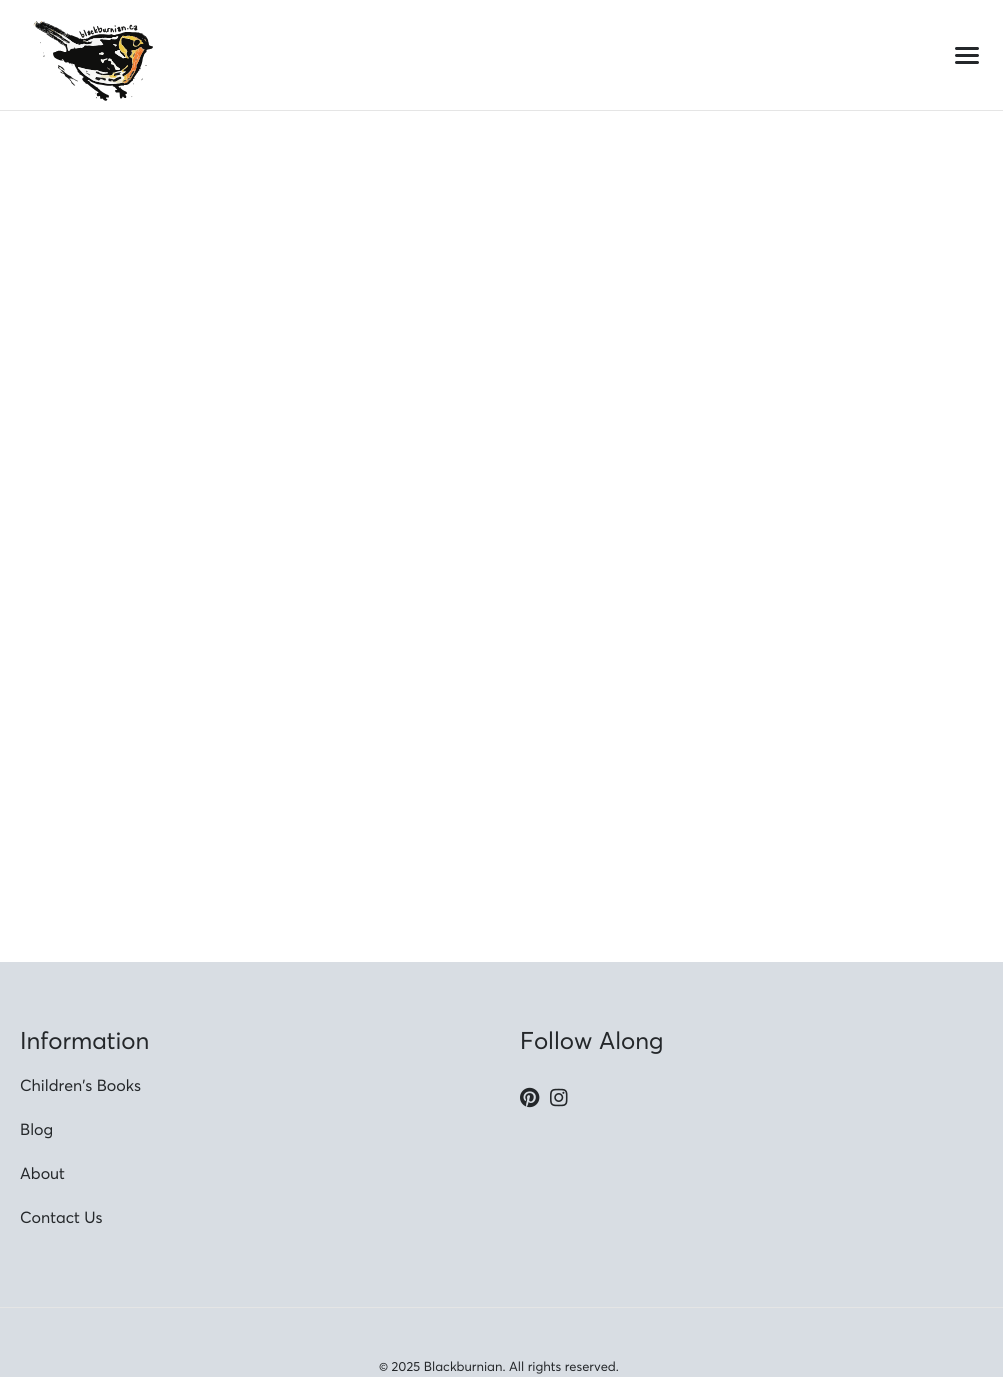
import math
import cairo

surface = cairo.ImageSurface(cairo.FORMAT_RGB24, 1003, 1377)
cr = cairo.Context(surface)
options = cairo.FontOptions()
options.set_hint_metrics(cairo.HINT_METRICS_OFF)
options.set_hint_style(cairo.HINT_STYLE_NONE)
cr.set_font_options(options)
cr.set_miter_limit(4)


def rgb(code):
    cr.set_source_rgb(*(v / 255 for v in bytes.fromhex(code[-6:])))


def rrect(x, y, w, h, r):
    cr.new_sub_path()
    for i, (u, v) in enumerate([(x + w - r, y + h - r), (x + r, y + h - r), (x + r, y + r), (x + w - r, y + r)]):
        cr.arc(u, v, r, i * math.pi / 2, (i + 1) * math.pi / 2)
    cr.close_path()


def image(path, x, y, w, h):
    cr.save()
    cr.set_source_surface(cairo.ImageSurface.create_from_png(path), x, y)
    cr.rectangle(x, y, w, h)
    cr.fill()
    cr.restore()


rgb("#ffffff")
cr.paint()
rgb("#e5e5e5")
cr.rectangle(0, 110, 1003, 1)
cr.fill()
image("img/1.png", 33, 21, 120, 80)
rgb("#24272a")
rrect(955, 47, 24, 3, 1.5)
cr.fill()
rrect(955, 54, 24, 3, 1.5)
cr.fill()
rrect(955, 61, 24, 3, 1.5)
cr.fill()
rgb("#d8dde3")
cr.rectangle(0, 962, 1003, 345)
cr.fill()
rgb("#e5e5e5")
cr.rectangle(0, 1307, 1003, 1)
cr.fill()
image("img/2.png", 520, 1087, 20, 21)
image("img/3.png", 550, 1088, 18, 19)
rgb("#d8dde3")
cr.rectangle(0, 1308, 1003, 69)
cr.fill()
cr.select_font_face("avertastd")
cr.set_font_size(24)
rgb("#24272a")
cr.move_to(20, 1049)
cr.show_text("Information")
cr.set_font_size(16)
for x, y, s in [
    (20, 1091, "Children’s Books"),
    (20, 1135, "Blog"),
    (20, 1179, "About"),
    (20, 1223, "Contact Us"),
]:
    cr.move_to(x, y)
    cr.show_text(s)
cr.set_font_size(24)
cr.move_to(520, 1049)
cr.show_text("Follow Along")
cr.set_font_size(13)
cr.move_to(379, 1371)
cr.show_text("© 2025 Blackburnian. All rights reserved.")
surface.write_to_png("page.png")
